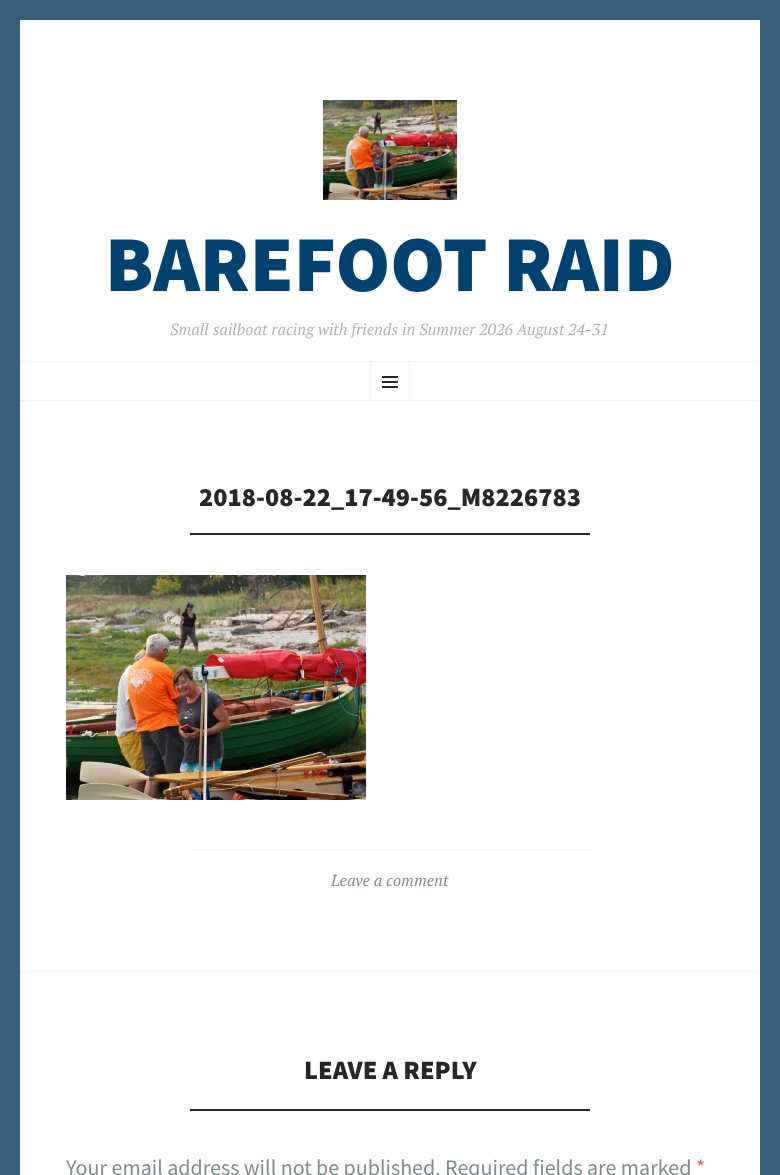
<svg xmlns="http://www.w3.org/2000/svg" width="780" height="1175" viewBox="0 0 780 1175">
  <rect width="100%" height="100%" fill="rgb(56,95,122)"/>
  <rect x="20" y="20" width="740" height="1155" fill="rgb(255,255,255)"/>
  <image x="323" y="100" width="134" height="100" href="pic1.png"/>
  <text x="105" y="291" font-family="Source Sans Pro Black" font-size="79.25" font-weight="900" fill="rgb(2,66,112)">BAREFOOT RAID</text>
  <text x="170" y="335" font-family="PT Serif" font-size="16.05" font-style="italic" fill="rgb(177,178,179)">Small sailboat racing with friends in Summer 2026 August 24-31</text>
  <rect x="20" y="361" width="740" height="1" fill="rgb(241,242,243)"/>
  <rect x="20" y="400" width="740" height="1" fill="rgb(241,242,243)"/>
  <rect x="370.5" y="361.5" width="39" height="39" fill="none" stroke="rgb(241,242,243)"/>
  <image x="382" y="376" width="16" height="12" href="pic2.png"/>
  <text x="199" y="506" font-family="Source Sans Pro Black" font-size="26.4" font-weight="900" fill="rgb(36,40,45)">2018-08-22_17-49-56_M8226783</text>
  <rect x="190" y="533" width="400" height="2" fill="rgb(36,40,45)"/>
  <image x="66" y="575" width="300" height="225" href="pic3.png"/>
  <rect x="190" y="849" width="400" height="1" fill="rgb(241,242,243)"/>
  <text x="331" y="886" font-family="PT Serif" font-size="16.05" font-style="italic" fill="rgb(127,141,140)">Leave a comment</text>
  <rect x="20" y="971" width="740" height="1" fill="rgb(241,242,243)"/>
  <text x="304" y="1079" font-family="Source Sans Pro Black" font-size="26.4" font-weight="900" fill="rgb(36,40,45)">LEAVE A REPLY</text>
  <rect x="190" y="1109" width="400" height="2" fill="rgb(36,40,45)"/>
  <text x="66" y="1175" font-family="Source Sans Pro" font-size="22" fill="rgb(127,141,140)">Your email address will not be published. Required fields are marked</text>
  <text x="696" y="1175" font-family="Source Sans Pro" font-size="22" fill="rgb(224,109,94)">*</text>
</svg>
